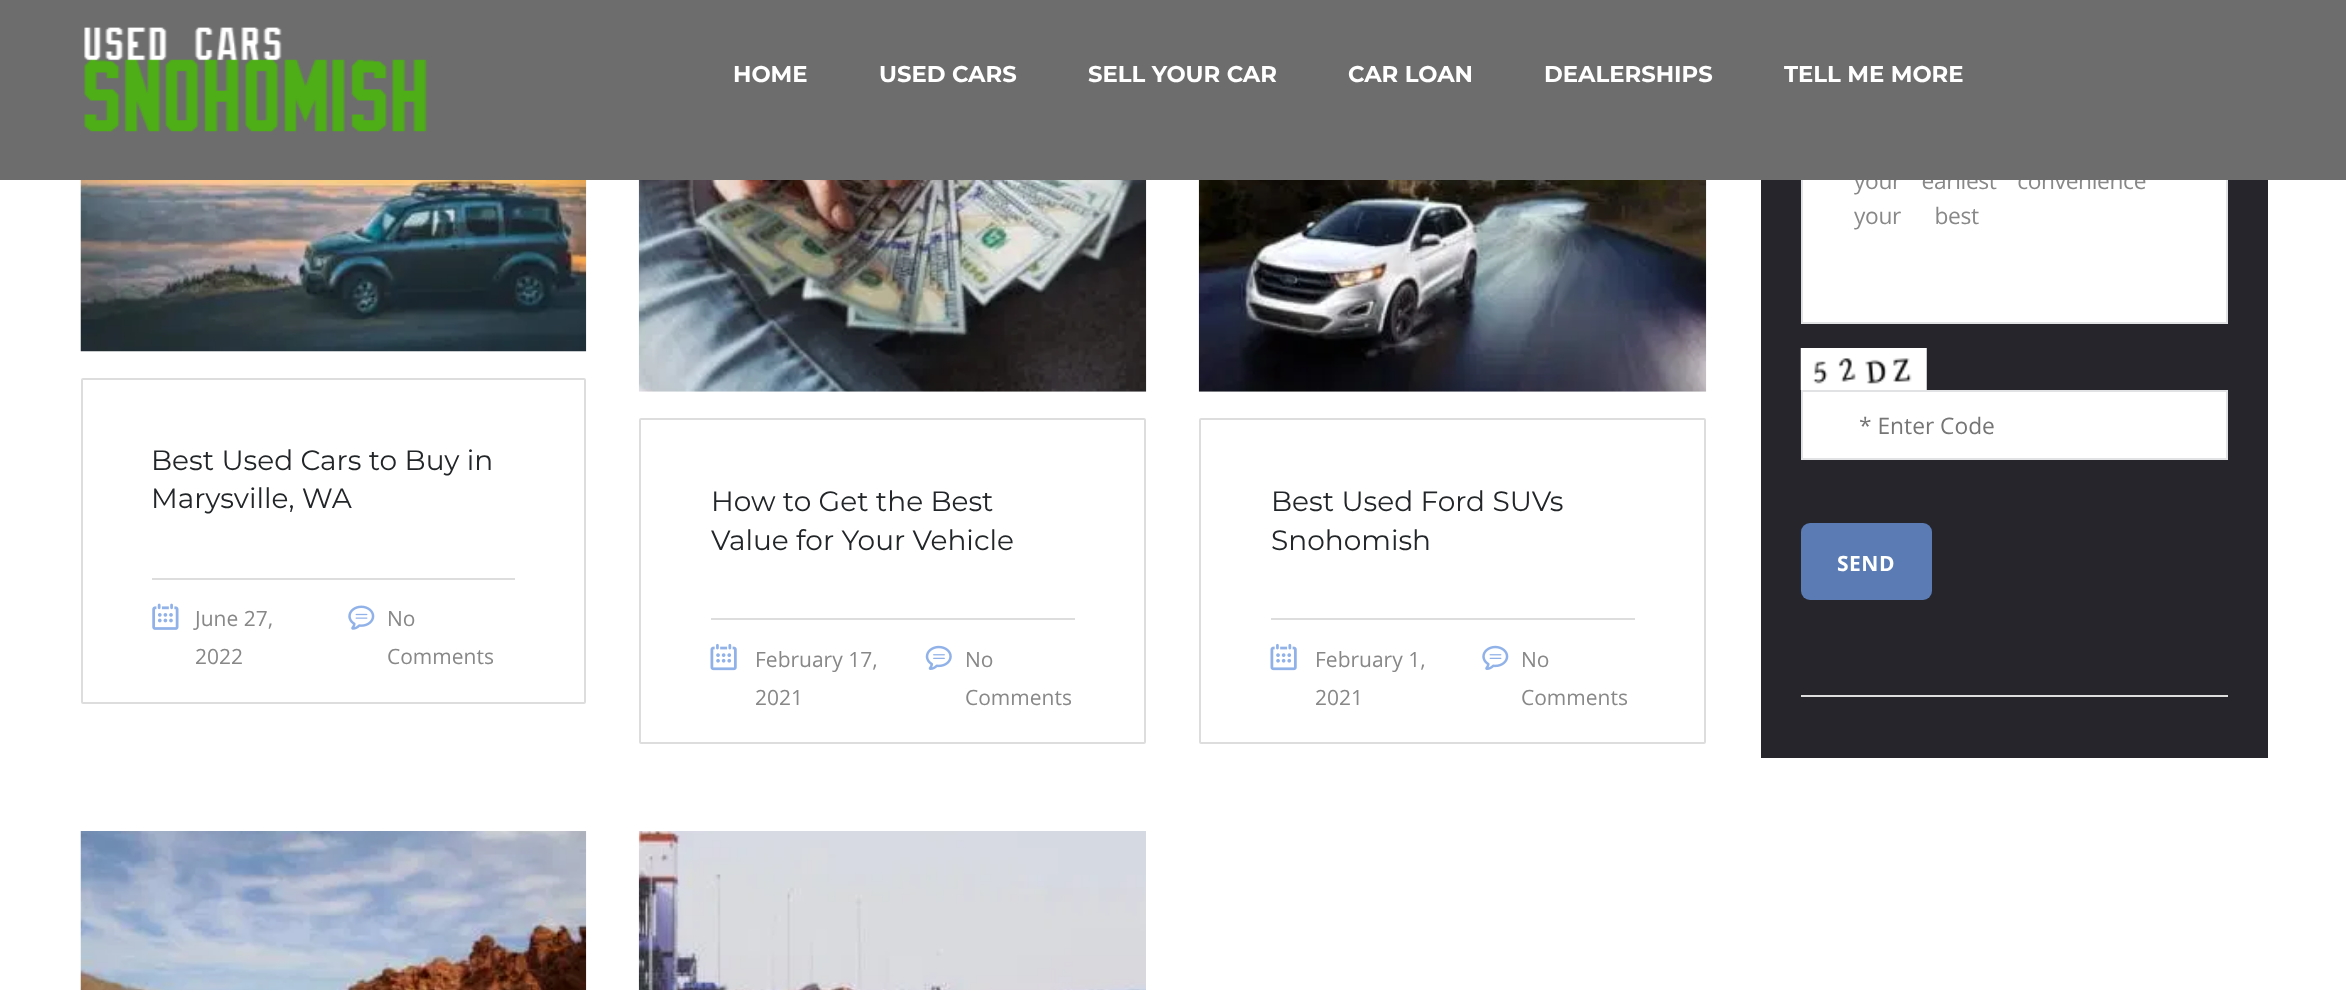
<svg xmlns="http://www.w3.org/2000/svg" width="2346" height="990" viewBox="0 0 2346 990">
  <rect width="100%" height="100%" fill="rgb(255,255,255)"/>
  <rect x="1761" y="180" width="507" height="578" fill="rgb(37,37,43)"/>
  <rect x="1803" y="180" width="423" height="142" fill="rgb(255,255,255)"/>
  <rect x="1802" y="78" width="425" height="245" fill="none" stroke="rgb(225,226,228)" stroke-width="2"/>
  <text x="1854" y="189" word-spacing="15" font-family="Open Sans" font-size="22.75" letter-spacing="-0.35" fill="rgb(136,136,136)">your earliest convenience</text>
  <rect x="0" y="0" width="2346" height="180" fill="rgb(109,109,109)"/>
  <image x="84" y="27" width="344" height="105" href="pic1.png"/>
  <g font-family="'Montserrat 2'" font-size="22.75" font-weight="100" fill="rgb(255,255,255)">
    <text x="733" y="82">HOME</text>
    <text x="879" y="82">USED CARS</text>
    <text x="1088" y="82">SELL YOUR CAR</text>
    <text x="1348" y="82">CAR LOAN</text>
    <text x="1544" y="82">DEALERSHIPS</text>
    <text x="1784" y="82">TELL ME MORE</text>
  </g>
  <image x="80" y="180" width="507" height="172" href="pic2.png"/>
  <rect x="82" y="379" width="503" height="324" rx="1" fill="none" stroke="rgb(221,221,221)" stroke-width="2"/>
  <g font-family="Montserrat" font-size="28" font-weight="100" fill="rgb(35,38,40)">
    <text>
      <tspan x="151" y="470">Best Used Cars to Buy in</tspan>
      <tspan x="151" y="508">Marysville, WA</tspan>
    </text>
  </g>
  <rect x="152" y="578" width="363" height="2" fill="rgb(221,221,221)"/>
  <image x="152" y="603" width="27" height="27" href="pic3.png"/>
  <g font-family="Open Sans" font-size="21" fill="rgb(136,136,136)">
    <text>
      <tspan x="195" y="626">June 27,</tspan>
      <tspan x="195" y="664">2022</tspan>
    </text>
  </g>
  <image x="348" y="605" width="27" height="25" href="pic4.png"/>
  <g font-family="Open Sans" font-size="21" fill="rgb(136,136,136)">
    <text>
      <tspan x="387" y="626">No</tspan>
      <tspan x="387" y="664">Comments</tspan>
    </text>
  </g>
  <image x="638" y="180" width="509" height="212" href="pic5.png"/>
  <rect x="640" y="419" width="505" height="324" rx="1" fill="none" stroke="rgb(221,221,221)" stroke-width="2"/>
  <g font-family="Montserrat" font-size="28" font-weight="100" fill="rgb(35,38,40)">
    <text>
      <tspan x="711" y="511">How to Get the Best</tspan>
      <tspan x="711" y="550">Value for Your Vehicle</tspan>
    </text>
  </g>
  <rect x="711" y="618" width="364" height="2" fill="rgb(221,221,221)"/>
  <image x="710" y="643" width="27" height="28" href="pic6.png"/>
  <g font-family="Open Sans" font-size="21" fill="rgb(136,136,136)">
    <text>
      <tspan x="755" y="667">February 17,</tspan>
      <tspan x="755" y="705">2021</tspan>
    </text>
  </g>
  <image x="925" y="645" width="27" height="25" href="pic7.png"/>
  <g font-family="Open Sans" font-size="21" fill="rgb(136,136,136)">
    <text>
      <tspan x="965" y="667">No</tspan>
      <tspan x="965" y="705">Comments</tspan>
    </text>
  </g>
  <image x="1198" y="180" width="509" height="212" href="pic8.png"/>
  <rect x="1200" y="419" width="505" height="324" rx="1" fill="none" stroke="rgb(221,221,221)" stroke-width="2"/>
  <g font-family="Montserrat" font-size="28" font-weight="100" fill="rgb(35,38,40)">
    <text>
      <tspan x="1271" y="511">Best Used Ford SUVs</tspan>
      <tspan x="1271" y="550">Snohomish</tspan>
    </text>
  </g>
  <rect x="1271" y="618" width="364" height="2" fill="rgb(221,221,221)"/>
  <image x="1270" y="643" width="27" height="28" href="pic6.png"/>
  <g font-family="Open Sans" font-size="21" fill="rgb(136,136,136)">
    <text>
      <tspan x="1315" y="667">February 1,</tspan>
      <tspan x="1315" y="705">2021</tspan>
    </text>
  </g>
  <image x="1482" y="645" width="27" height="25" href="pic9.png"/>
  <g font-family="Open Sans" font-size="21" fill="rgb(136,136,136)">
    <text>
      <tspan x="1521" y="667">No</tspan>
      <tspan x="1521" y="705">Comments</tspan>
    </text>
  </g>
  <image x="80" y="831" width="507" height="159" href="pic10.png"/>
  <image x="638" y="831" width="508" height="159" href="pic11.png"/>
  <rect x="1801" y="695" width="427" height="2" fill="rgb(221,221,221)"/>
  <text x="1854" y="224" word-spacing="28" font-family="Open Sans" font-size="22.75" letter-spacing="-0.35" fill="rgb(136,136,136)">your best</text>
  <image x="1800" y="348" width="127" height="42" href="pic12.png"/>
  <rect x="1802" y="391" width="425" height="68" fill="rgb(255,255,255)" stroke="rgb(225,226,228)" stroke-width="2"/>
  <text x="1859" y="434" font-family="Open Sans" font-size="22.75" fill="rgb(117,117,117)">* Enter Code</text>
  <rect x="1801" y="523" width="131" height="77" rx="9" fill="rgb(90,123,180)"/>
  <text x="1837" y="571" font-family="Open Sans" font-size="21" font-weight="bold" letter-spacing="0.5" fill="rgb(255,255,255)">SEND</text>
</svg>
